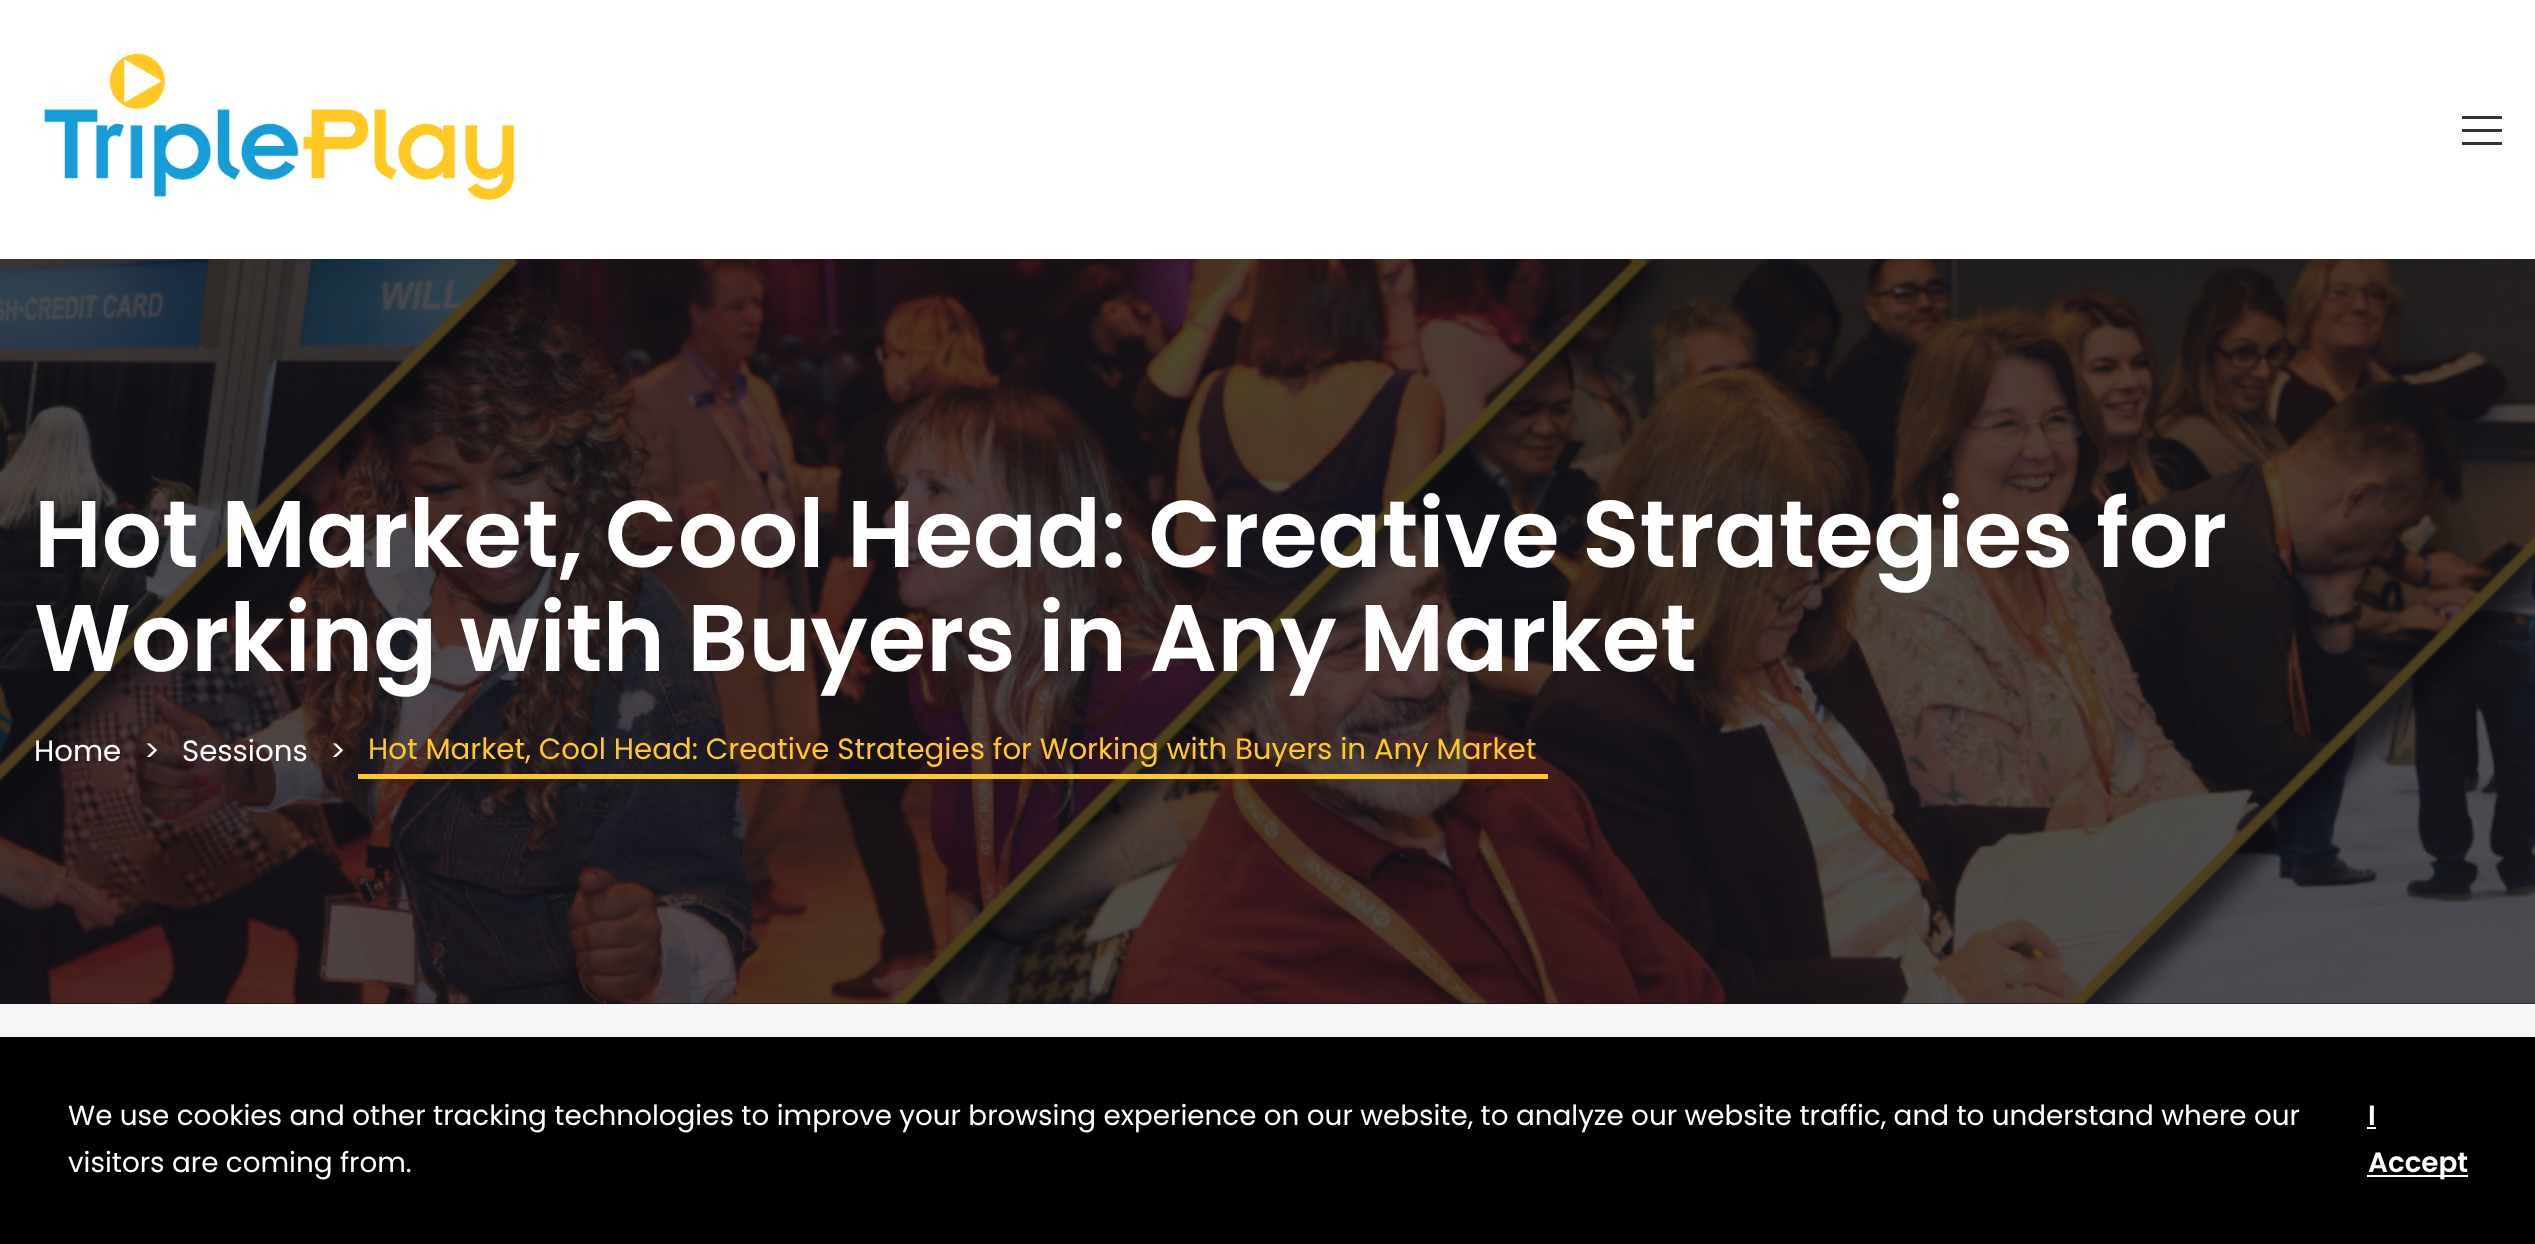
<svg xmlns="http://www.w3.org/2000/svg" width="2535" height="1244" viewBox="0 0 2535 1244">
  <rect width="100%" height="100%" fill="rgb(246,246,246)"/>
  <rect x="0" y="259" width="2535" height="745" fill="rgb(18,18,25)"/>
  <image x="0" y="259" width="2535" height="745" href="pic2.png"/>
  <rect x="0" y="2" width="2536" height="259" fill="rgba(0,0,0,0.1)" filter="blur(34px)"/>
  <rect x="0" y="0" width="2535" height="259" fill="rgb(255,255,255)"/>
  <image x="44" y="53" width="470" height="147" href="pic1.png"/>
  <rect x="2462" y="116" width="40" height="3" fill="rgb(51,51,51)"/>
  <rect x="2462" y="129" width="40" height="3" fill="rgb(51,51,51)"/>
  <rect x="2462" y="142" width="40" height="3" fill="rgb(51,51,51)"/>
  <g font-family="Poppins" font-size="94.5" font-weight="600" fill="rgb(255,255,255)">
    <text>
      <tspan x="34" y="567">Hot Market, Cool Head: Creative Strategies for</tspan>
      <tspan x="34" y="671">Working with Buyers in Any Market</tspan>
    </text>
  </g>
  <g font-family="Poppins" font-size="29.25" fill="rgb(255,255,255)">
    <text x="34" y="761">Home</text>
    <text x="144" y="761">&gt;</text>
    <text x="182" y="761">Sessions</text>
    <text x="330" y="761">&gt;</text>
  </g>
  <rect x="358" y="774" width="1190" height="5" fill="rgb(255,200,36)"/>
  <text x="368" y="759" font-family="Poppins" font-size="29.25" fill="rgb(255,200,36)">Hot Market, Cool Head: Creative Strategies for Working with Buyers in Any Market</text>
  <rect x="0" y="1037" width="2535" height="207" fill="rgb(0,0,0)"/>
  <g font-family="Poppins" font-size="27.8" fill="rgb(255,255,255)">
    <text>
      <tspan x="68" y="1125">We use cookies and other tracking technologies to improve your browsing experience on our website, to analyze our website traffic, and to understand where our</tspan>
      <tspan x="68" y="1172">visitors are coming from.</tspan>
    </text>
  </g>
  <text x="2368" y="1125" font-family="Poppins" font-size="27.8" font-weight="600" fill="rgb(255,255,255)">I</text>
  <rect x="2367" y="1127" width="9" height="2" fill="rgb(255,255,255)"/>
  <rect x="2367" y="1175" width="101" height="2" fill="rgb(255,255,255)"/>
  <text x="2368" y="1172" font-family="Poppins" font-size="27.8" font-weight="600" fill="rgb(255,255,255)">Accept</text>
</svg>
